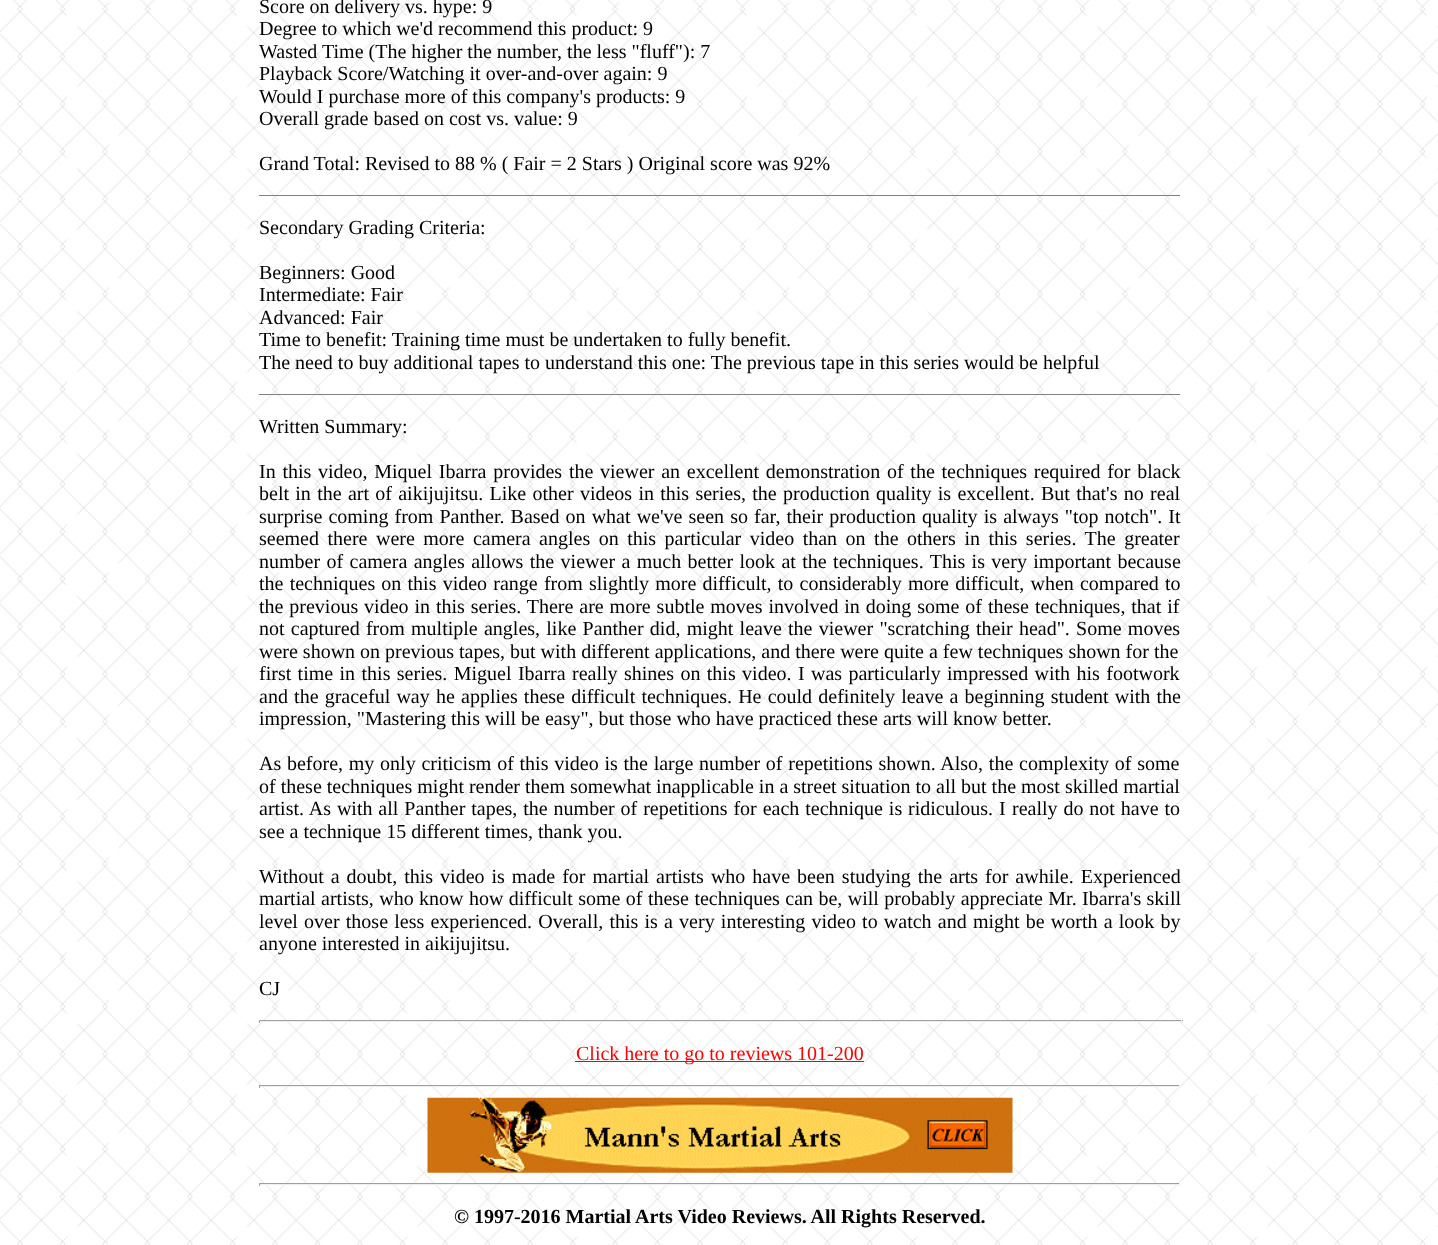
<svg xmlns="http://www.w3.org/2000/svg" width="1438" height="1245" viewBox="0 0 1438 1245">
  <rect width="100%" height="100%" fill="rgb(255,255,255)"/>
  <image x="0" y="0" width="1438" height="1245" href="pic1.png"/>
  <g font-family="Liberation Serif" font-size="20" fill="rgb(0,0,0)">
    <text>
      <tspan x="259" y="13">Score on delivery vs. hype: 9</tspan>
      <tspan x="259" y="35">Degree to which we'd recommend this product: 9</tspan>
      <tspan x="259" y="58">Wasted Time (The higher the number, the less "fluff"): 7</tspan>
      <tspan x="259" y="80">Playback Score/Watching it over-and-over again: 9</tspan>
      <tspan x="259" y="103">Would I purchase more of this company's products: 9</tspan>
      <tspan x="259" y="125">Overall grade based on cost vs. value: 9</tspan>
    </text>
    <text x="259" y="170">Grand Total: Revised to 88 % ( Fair = 2 Stars ) Original score was 92%</text>
  </g>
  <rect x="259" y="195" width="921" height="1" fill="rgb(128,128,128)"/>
  <g font-family="Liberation Serif" font-size="20" fill="rgb(0,0,0)">
    <text x="259" y="234">Secondary Grading Criteria:</text>
    <text>
      <tspan x="259" y="279">Beginners: Good</tspan>
      <tspan x="259" y="301">Intermediate: Fair</tspan>
      <tspan x="259" y="324">Advanced: Fair</tspan>
      <tspan x="259" y="346">Time to benefit: Training time must be undertaken to fully benefit.</tspan>
      <tspan x="259" y="369">The need to buy additional tapes to understand this one: The previous tape in this series would be helpful</tspan>
    </text>
  </g>
  <rect x="259" y="394" width="921" height="1" fill="rgb(128,128,128)"/>
  <g font-family="Liberation Serif" font-size="20" fill="rgb(0,0,0)">
    <text x="259" y="433">Written Summary:</text>
    <text>
      <tspan x="259" y="478" word-spacing="1.75">In this video, Miquel Ibarra provides the viewer an excellent demonstration of the techniques required for black</tspan>
      <tspan x="259" y="500" word-spacing="1.3">belt in the art of aikijujitsu. Like other videos in this series, the production quality is excellent. But that's no real</tspan>
      <tspan x="259" y="523" word-spacing="1.1">surprise coming from Panther. Based on what we've seen so far, their production quality is always "top notch". It</tspan>
      <tspan x="259" y="545" word-spacing="3.5">seemed there were more camera angles on this particular video than on the others in this series. The greater</tspan>
      <tspan x="259" y="568" word-spacing="1.4">number of camera angles allows the viewer a much better look at the techniques. This is very important because</tspan>
      <tspan x="259" y="590" word-spacing="1.2">the techniques on this video range from slightly more difficult, to considerably more difficult, when compared to</tspan>
      <tspan x="259" y="613" word-spacing="0.9">the previous video in this series. There are more subtle moves involved in doing some of these techniques, that if</tspan>
      <tspan x="259" y="635" word-spacing="1.25">not captured from multiple angles, like Panther did, might leave the viewer "scratching their head". Some moves</tspan>
      <tspan x="259" y="658">were shown on previous tapes, but with different applications, and there were quite a few techniques shown for the</tspan>
      <tspan x="259" y="680" word-spacing="1.4">first time in this series. Miguel Ibarra really shines on this video. I was particularly impressed with his footwork</tspan>
      <tspan x="259" y="703" word-spacing="1.2">and the graceful way he applies these difficult techniques. He could definitely leave a beginning student with the</tspan>
      <tspan x="259" y="725">impression, "Mastering this will be easy", but those who have practiced these arts will know better.</tspan>
    </text>
    <text>
      <tspan x="259" y="770" word-spacing="0.75">As before, my only criticism of this video is the large number of repetitions shown. Also, the complexity of some</tspan>
      <tspan x="259" y="793">of these techniques might render them somewhat inapplicable in a street situation to all but the most skilled martial</tspan>
      <tspan x="259" y="815" word-spacing="0.9">artist. As with all Panther tapes, the number of repetitions for each technique is ridiculous.</tspan>
    </text>
    <text x="999" y="815">I</text>
    <text x="1012" y="815" word-spacing="0.9">really do not have to</text>
    <text x="259" y="838">see a technique 15 different times, thank you.</text>
    <text>
      <tspan x="259" y="883" word-spacing="2">Without a doubt, this video is made for martial artists who have been studying the arts for awhile. Experienced</tspan>
      <tspan x="259" y="905" word-spacing="0.4">martial artists, who know how difficult some of these techniques can be, will probably appreciate Mr. Ibarra's skill</tspan>
      <tspan x="259" y="928" word-spacing="1.2">level over those less experienced. Overall, this is a very interesting video to watch and might be worth a look by</tspan>
      <tspan x="259" y="950">anyone interested in aikijujitsu.</tspan>
    </text>
    <text x="259" y="995">CJ</text>
  </g>
  <rect x="259" y="1020" width="924" height="1" fill="rgb(159,159,159)"/>
  <rect x="1181" y="1020" width="1" height="3" fill="rgb(238,238,238)"/>
  <rect x="259" y="1021" width="924" height="1" fill="rgb(238,238,238)"/>
  <rect x="259" y="1020" width="1" height="3" fill="rgb(159,159,159)"/>
  <rect x="575" y="1061" width="289" height="1" fill="rgb(255,0,0)"/>
  <text x="576" y="1060" font-family="Liberation Serif" font-size="20" fill="rgb(255,0,0)">Click here to go to reviews 101-200</text>
  <rect x="259" y="1085" width="921" height="1" fill="rgb(159,159,159)"/>
  <rect x="1179" y="1085" width="1" height="3" fill="rgb(238,238,238)"/>
  <rect x="259" y="1086" width="921" height="1" fill="rgb(238,238,238)"/>
  <rect x="259" y="1085" width="1" height="3" fill="rgb(159,159,159)"/>
  <image x="427" y="1097" width="586" height="76" href="pic2.png"/>
  <rect x="259" y="1183" width="921" height="1" fill="rgb(159,159,159)"/>
  <rect x="1179" y="1183" width="1" height="3" fill="rgb(238,238,238)"/>
  <rect x="259" y="1184" width="921" height="1" fill="rgb(238,238,238)"/>
  <rect x="259" y="1183" width="1" height="3" fill="rgb(159,159,159)"/>
  <text x="454" y="1223" font-family="Liberation Serif" font-size="20" font-weight="bold" fill="rgb(0,0,0)">© 1997-2016 Martial Arts Video Reviews. All Rights Reserved.</text>
</svg>
